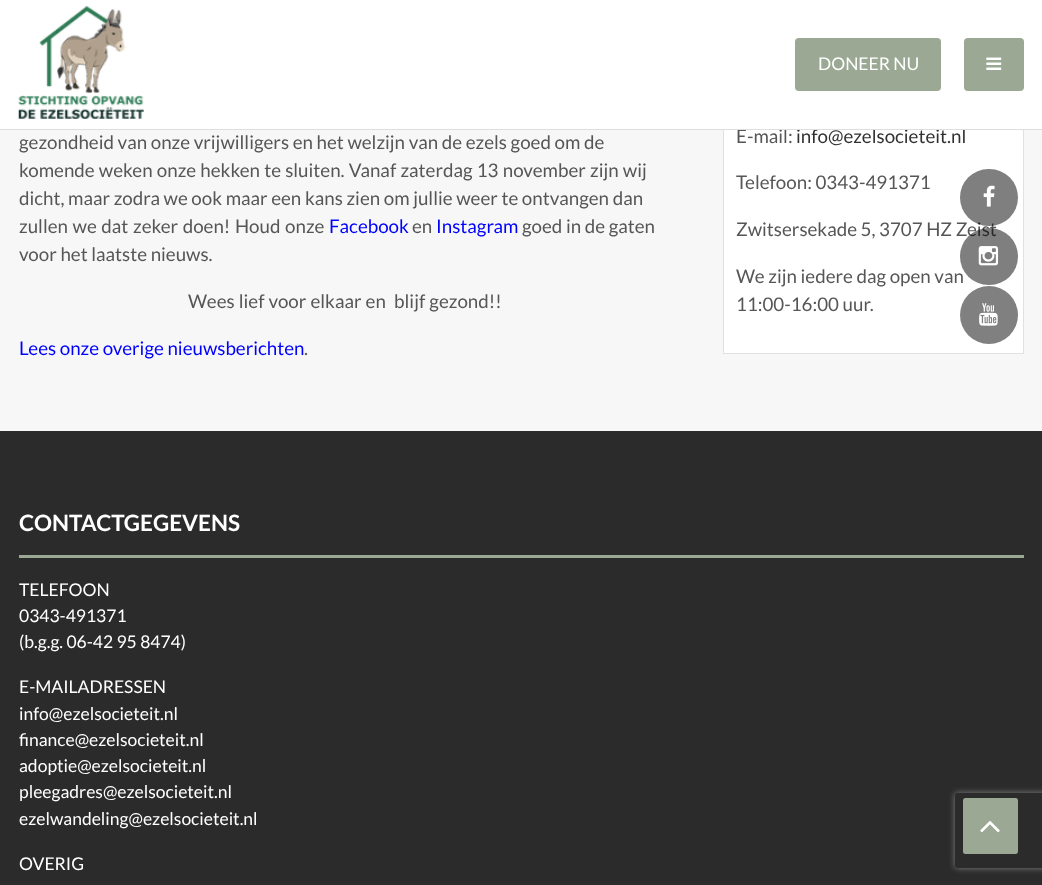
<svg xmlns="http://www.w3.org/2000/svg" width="1042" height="885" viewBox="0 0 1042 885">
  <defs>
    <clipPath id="clip1"><path d="M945 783H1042V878H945ZM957.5 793H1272.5C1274 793 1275 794 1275 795.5V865.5C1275 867 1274 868 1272.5 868H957.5C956 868 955 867 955 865.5V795.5C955 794 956 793 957.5 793Z" clip-rule="evenodd"/></clipPath>
  </defs>
  <rect width="100%" height="100%" fill="rgb(247,247,247)"/>
  <rect x="724" y="130" width="299" height="223" fill="rgb(255,255,255)"/>
  <rect x="723.5" y="28.5" width="300" height="325" fill="none" stroke="rgb(225,225,225)"/>
  <rect x="0" y="0" width="1042" height="129" fill="rgb(255,255,255)"/>
  <text x="736" y="143" font-family="Lato" font-size="18.75" fill="rgb(86,86,86)">E-mail:</text>
  <text x="796" y="143" font-family="Lato" font-size="18.75" fill="rgb(49,49,49)">info@ezelsocieteit.nl</text>
  <rect x="0" y="129" width="1042" height="1" fill="rgb(222,222,222)"/>
  <image x="18" y="6" width="126" height="113" href="pic1.png"/>
  <rect x="795" y="38" width="146" height="53" rx="4" fill="rgb(154,168,148)"/>
  <text x="818" y="70" font-family="Lato" font-size="17.5" fill="rgb(255,255,255)">DONEER NU</text>
  <rect x="964" y="38" width="60" height="53" rx="4" fill="rgb(154,168,148)"/>
  <image x="986" y="57" width="16" height="13" href="pic2.png"/>
  <g font-family="Lato" font-size="18.75" fill="rgb(86,86,86)">
    <text>
      <tspan x="19" y="149">gezondheid van onze vrijwilligers en het welzijn van de ezels goed om de</tspan>
      <tspan x="19" y="177" word-spacing="0.6">komende weken onze hekken te sluiten. Vanaf zaterdag 13 november zijn wij</tspan>
      <tspan x="19" y="205">dicht, maar zodra we ook maar een kans zien om jullie weer te ontvangen dan</tspan>
      <tspan x="19" y="233" word-spacing="1">zullen we dat zeker doen! Houd onze</tspan>
    </text>
  </g>
  <text x="329" y="233" font-family="Lato" font-size="18.75" fill="rgb(0,0,255)">Facebook</text>
  <text x="412" y="233" font-family="Lato" font-size="18.75" fill="rgb(86,86,86)">en</text>
  <text x="436" y="233" font-family="Lato" font-size="18.75" fill="rgb(0,0,255)">Instagram</text>
  <g font-family="Lato" font-size="18.75" fill="rgb(86,86,86)">
    <text x="522" y="233">goed in de gaten</text>
    <text x="19" y="261">voor het laatste nieuws.</text>
    <text x="188" y="308" word-spacing="0.5" xml:space="preserve">Wees lief voor elkaar en  blijf gezond!!</text>
  </g>
  <text x="19" y="355" font-family="Lato" font-size="18.75" fill="rgb(0,0,255)">Lees onze overige nieuwsberichten</text>
  <g font-family="Lato" font-size="18.75" fill="rgb(86,86,86)">
    <text x="304" y="355">.</text>
    <text x="736" y="189">Telefoon: 0343-491371</text>
    <text x="736" y="236">Zwitsersekade 5, 3707 HZ Zeist</text>
    <text>
      <tspan x="736" y="283">We zijn iedere dag open van</tspan>
      <tspan x="736" y="311">11:00-16:00 uur.</tspan>
    </text>
  </g>
  <rect x="960" y="169" width="58" height="57" rx="28.5" fill="rgba(0,0,0,0.5)"/>
  <image x="983" y="185" width="12" height="22" href="pic3.png"/>
  <rect x="960" y="228" width="58" height="57" rx="28.5" fill="rgba(0,0,0,0.5)"/>
  <image x="978" y="246" width="21" height="20" href="pic4.png"/>
  <circle cx="989" cy="315" r="29" fill="rgb(128,128,128)"/>
  <image x="979" y="303" width="19" height="23" href="pic5.png"/>
  <rect x="0" y="431" width="1042" height="454" fill="rgb(43,43,43)"/>
  <rect x="19" y="555" width="1005" height="3" fill="rgb(154,168,148)"/>
  <text x="19" y="531" font-family="Lato" font-size="22.5" font-weight="bold" fill="rgb(255,255,255)">CONTACTGEGEVENS</text>
  <g font-family="Lato" font-size="17.5" fill="rgb(255,255,255)">
    <text>
      <tspan x="19" y="596">TELEFOON</tspan>
      <tspan x="19" y="622">0343-491371</tspan>
      <tspan x="19" y="648">(b.g.g. 06-42 95 8474)</tspan>
    </text>
    <text>
      <tspan x="19" y="693">E-MAILADRESSEN</tspan>
      <tspan x="19" y="720">info@ezelsocieteit.nl</tspan>
      <tspan x="19" y="746">finance@ezelsocieteit.nl</tspan>
      <tspan x="19" y="772">adoptie@ezelsocieteit.nl</tspan>
      <tspan x="19" y="798">pleegadres@ezelsocieteit.nl</tspan>
      <tspan x="19" y="825">ezelwandeling@ezelsocieteit.nl</tspan>
    </text>
    <text x="19" y="870">OVERIG</text>
  </g>
  <g clip-path="url(#clip1)">
    <rect x="955" y="793" width="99" height="75" rx="2.5" fill="rgb(128,128,128)" filter="blur(3px)"/>
  </g>
  <rect x="963" y="798" width="55" height="56" rx="2.5" fill="rgb(154,168,148)"/>
  <image x="980" y="821" width="20" height="12" href="pic6.png"/>
</svg>
